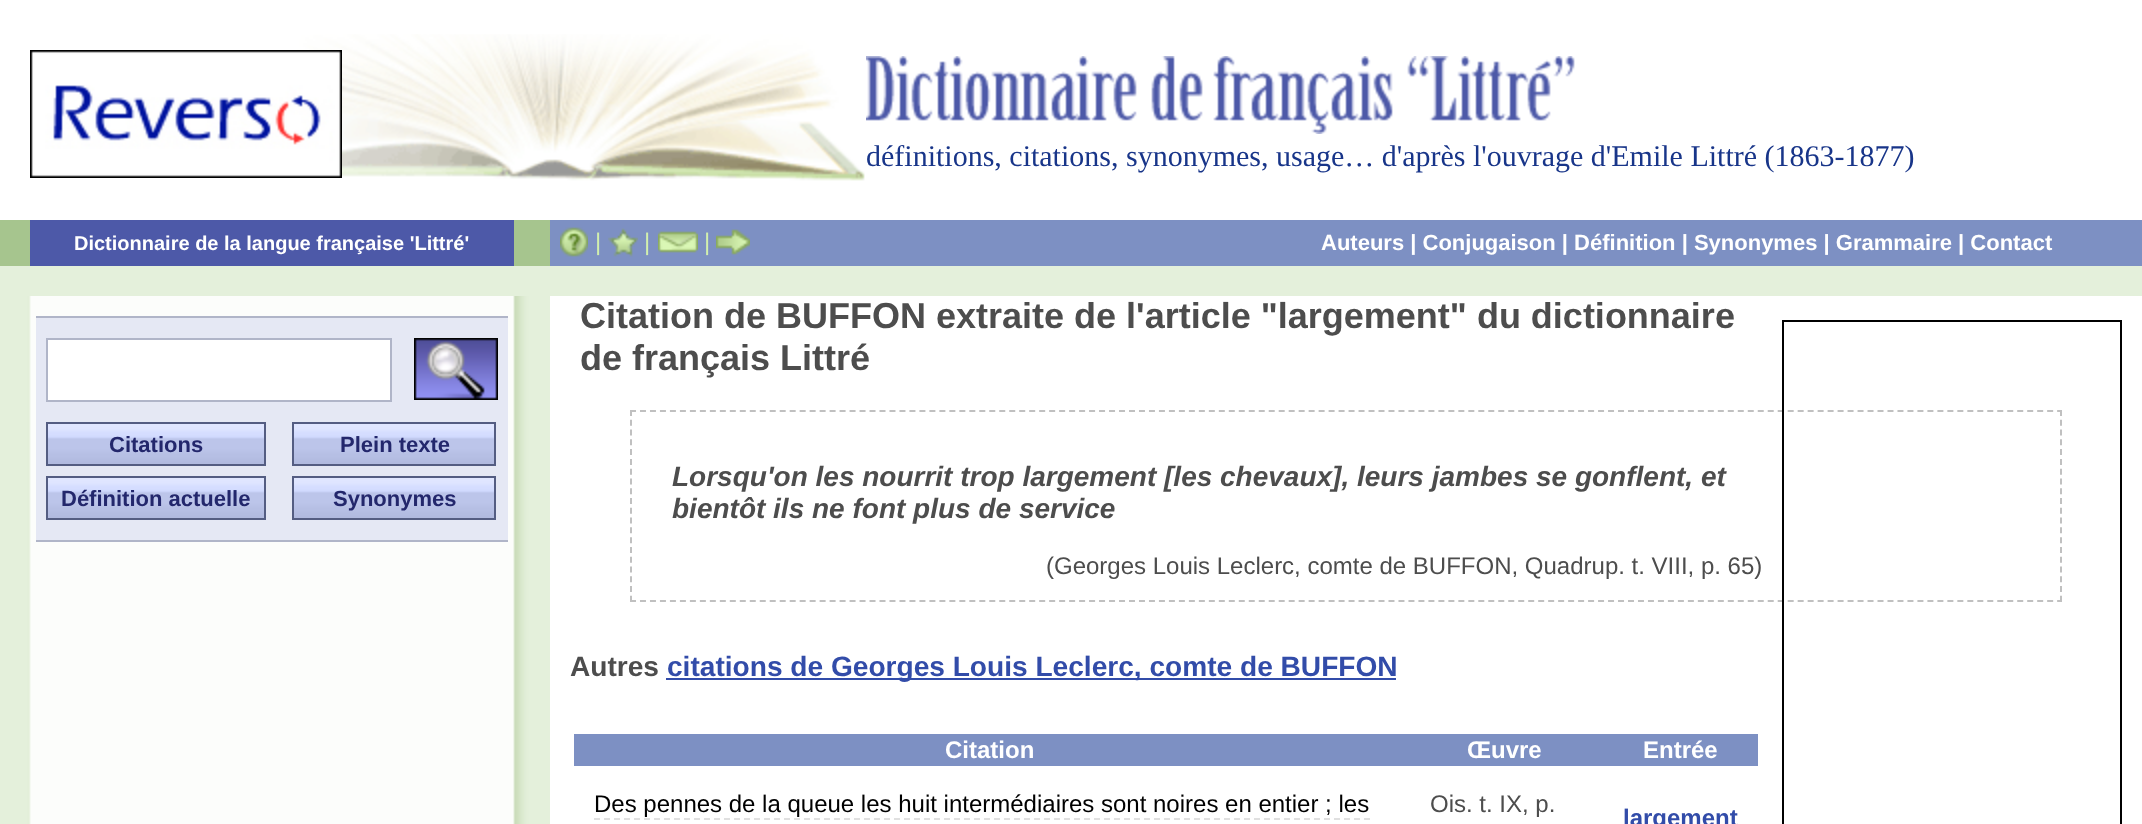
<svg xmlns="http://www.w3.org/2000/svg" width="2142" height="824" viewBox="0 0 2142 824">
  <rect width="100%" height="100%" fill="rgb(228,240,219)"/>
  <rect x="0" y="0" width="2142" height="220" fill="rgb(255,255,255)"/>
  <image x="234" y="34" width="631" height="147" href="pic1.png"/>
  <image x="30" y="50" width="312" height="128" href="pic2.png"/>
  <image x="866" y="56" width="709" height="78" href="pic3.png"/>
  <text x="866" y="166" font-family="Liberation Serif" font-size="30" fill="rgb(24,53,137)">définitions, citations, synonymes, usage… d'après l'ouvrage d'Emile Littré (1863-1877)</text>
  <rect x="0" y="220" width="550" height="46" fill="rgb(166,197,142)"/>
  <rect x="30" y="220" width="484" height="46" fill="rgb(77,89,168)"/>
  <text x="74" y="250" font-family="Liberation Sans" font-size="20" font-weight="bold" fill="rgb(255,255,255)">Dictionnaire de la langue française 'Littré'</text>
  <rect x="550" y="220" width="1592" height="46" fill="rgb(125,144,195)"/>
  <image x="560" y="227" width="28" height="30" href="pic4.png"/>
  <text x="595" y="250" font-family="Liberation Sans" font-size="24" fill="rgb(210,239,173)">|</text>
  <image x="608" y="228" width="30" height="29" href="pic5.png"/>
  <text x="644" y="250" font-family="Liberation Sans" font-size="24" fill="rgb(210,239,173)">|</text>
  <image x="658" y="231" width="40" height="22" href="pic6.png"/>
  <text x="704" y="250" font-family="Liberation Sans" font-size="24" fill="rgb(210,239,173)">|</text>
  <image x="716" y="229" width="34" height="26" href="pic7.png"/>
  <text x="1321" y="250" font-family="Liberation Sans" font-size="22" font-weight="bold" fill="rgb(255,255,255)">Auteurs | Conjugaison | Définition | Synonymes | Grammaire | Contact</text>
  <rect x="550" y="296" width="1592" height="528" fill="rgb(255,255,255)"/>
  <image x="0" y="296" width="550" height="528" href="pic8.png"/>
  <rect x="36" y="318" width="472" height="222" fill="rgb(229,232,244)"/>
  <rect x="36" y="316" width="472" height="2" fill="rgb(176,181,200)"/>
  <rect x="36" y="540" width="472" height="2" fill="rgb(176,181,200)"/>
  <rect x="47" y="339" width="344" height="62" fill="rgb(255,255,255)" stroke="rgb(176,181,200)" stroke-width="2"/>
  <image x="414" y="338" width="84" height="62" href="pic9.png"/>
  <image x="48" y="424" width="216" height="40" href="pic10.png"/>
  <rect x="47" y="423" width="218" height="42" fill="none" stroke="rgb(84,93,130)" stroke-width="2"/>
  <text x="109" y="452" font-family="Liberation Sans" font-size="22" font-weight="bold" fill="rgb(35,39,108)">Citations</text>
  <image x="294" y="424" width="200" height="40" href="pic11.png"/>
  <rect x="293" y="423" width="202" height="42" fill="none" stroke="rgb(84,93,130)" stroke-width="2"/>
  <text x="340" y="452" font-family="Liberation Sans" font-size="22" font-weight="bold" fill="rgb(35,39,108)">Plein texte</text>
  <image x="48" y="478" width="216" height="40" href="pic10.png"/>
  <rect x="47" y="477" width="218" height="42" fill="none" stroke="rgb(84,93,130)" stroke-width="2"/>
  <text x="61" y="506" font-family="Liberation Sans" font-size="22" font-weight="bold" fill="rgb(35,39,108)">Définition actuelle</text>
  <image x="294" y="478" width="200" height="40" href="pic11.png"/>
  <rect x="293" y="477" width="202" height="42" fill="none" stroke="rgb(84,93,130)" stroke-width="2"/>
  <text x="333" y="506" font-family="Liberation Sans" font-size="22" font-weight="bold" fill="rgb(35,39,108)">Synonymes</text>
  <g font-family="Liberation Sans" font-size="36" font-weight="bold" fill="rgb(77,77,77)">
    <text>
      <tspan x="580" y="328">Citation de BUFFON extraite de l'article "largement" du dictionnaire</tspan>
      <tspan x="580" y="370">de français Littré</tspan>
    </text>
  </g>
  <path d="M630 411H2062" fill="none" stroke="rgb(192,192,192)" stroke-width="2" stroke-dasharray="6 3.98"/>
  <path d="M2061 410V602" fill="none" stroke="rgb(192,192,192)" stroke-width="2" stroke-dasharray="6 3.78"/>
  <path d="M630 601H2062" fill="none" stroke="rgb(192,192,192)" stroke-width="2" stroke-dasharray="6 3.98"/>
  <path d="M631 410V602" fill="none" stroke="rgb(192,192,192)" stroke-width="2" stroke-dasharray="6 3.78"/>
  <g font-family="Liberation Sans" font-size="28" font-weight="bold" font-style="italic" fill="rgb(77,77,77)">
    <text>
      <tspan x="672" y="486">Lorsqu'on les nourrit trop largement [les chevaux], leurs jambes se gonflent, et</tspan>
      <tspan x="672" y="518">bientôt ils ne font plus de service</tspan>
    </text>
  </g>
  <text x="1046" y="574" font-family="Liberation Sans" font-size="24" fill="rgb(77,77,77)">(Georges Louis Leclerc, comte de BUFFON, Quadrup. t. VIII, p. 65)</text>
  <text x="570" y="676" font-family="Liberation Sans" font-size="28.1" font-weight="bold" fill="rgb(77,77,77)">Autres</text>
  <rect x="666" y="678" width="730" height="2" fill="rgb(50,76,169)"/>
  <text x="667" y="676" font-family="Liberation Sans" font-size="28.1" font-weight="bold" fill="rgb(50,76,169)">citations de Georges Louis Leclerc, comte de BUFFON</text>
  <rect x="574" y="734" width="1184" height="32" fill="rgb(125,144,195)"/>
  <g font-family="Liberation Sans" font-size="24" font-weight="bold" fill="rgb(255,255,255)">
    <text x="945" y="758">Citation</text>
    <text x="1467" y="758">Œuvre</text>
    <text x="1643" y="758">Entrée</text>
  </g>
  <text x="594" y="812" font-family="Liberation Sans" font-size="24" fill="rgb(0,0,0)">Des pennes de la queue les huit intermédiaires sont noires en entier ; les</text>
  <path d="M594 819H1370" fill="none" stroke="rgb(224,224,224)" stroke-width="2" stroke-dasharray="6 4"/>
  <text x="1430" y="812" font-family="Liberation Sans" font-size="24" fill="rgb(77,77,77)">Ois. t. IX, p.</text>
  <text x="1623" y="826" font-family="Liberation Sans" font-size="24" font-weight="bold" fill="rgb(50,76,169)">largement</text>
  <rect x="1783" y="321" width="338" height="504" fill="none" stroke="rgb(0,0,0)" stroke-width="2"/>
</svg>
